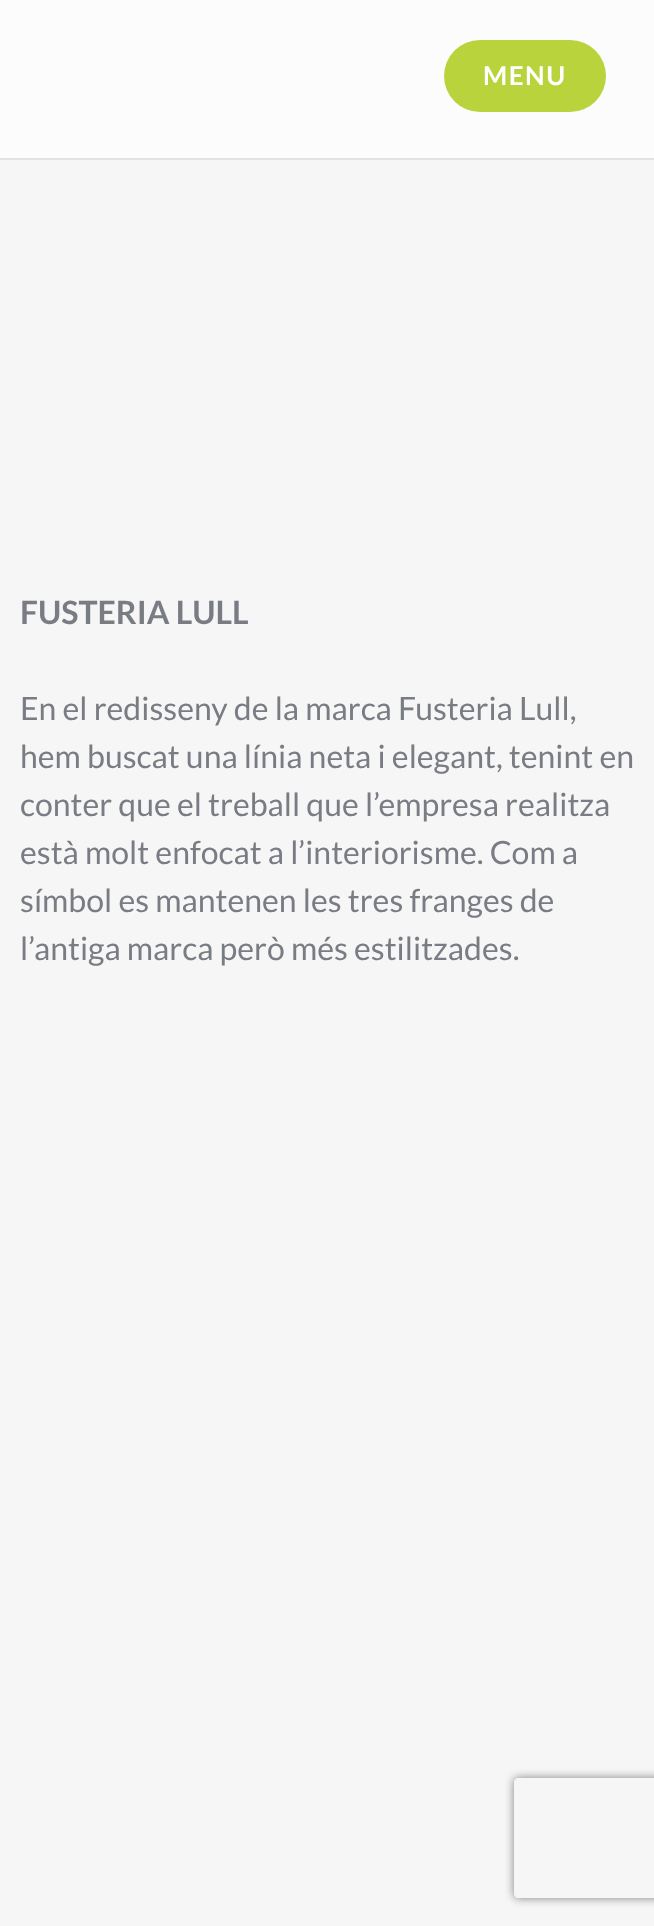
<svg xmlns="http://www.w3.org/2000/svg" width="654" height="1926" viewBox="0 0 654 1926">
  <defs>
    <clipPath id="clip1"><path d="M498 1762H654V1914H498ZM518 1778H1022C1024 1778 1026 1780 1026 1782V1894C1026 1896 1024 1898 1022 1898H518C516 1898 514 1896 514 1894V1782C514 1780 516 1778 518 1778Z" clip-rule="evenodd"/></clipPath>
  </defs>
  <rect width="100%" height="100%" fill="rgb(246,246,246)"/>
  <rect x="0" y="0" width="654" height="158" fill="rgb(252,252,252)"/>
  <rect x="0" y="158" width="654" height="2" fill="rgb(227,227,227)"/>
  <rect x="444" y="40" width="162" height="72" rx="36" fill="rgb(185,211,60)"/>
  <text x="483" y="85" font-family="Lato" font-size="26" font-weight="bold" letter-spacing="1.5" fill="rgb(255,255,255)">MENU</text>
  <text x="20" y="624" font-family="Lato" font-size="32" font-weight="bold" fill="rgb(122,124,132)">FUSTERIA LULL</text>
  <g font-family="Lato" font-size="32" fill="rgb(122,124,132)">
    <text>
      <tspan x="20" y="720">En el redisseny de la marca Fusteria Lull,</tspan>
      <tspan x="20" y="768">hem buscat una línia neta i elegant, tenint en</tspan>
      <tspan x="20" y="816">conter que el treball que l’empresa realitza</tspan>
      <tspan x="20" y="864">està molt enfocat a l’interiorisme. Com a</tspan>
      <tspan x="20" y="912">símbol es mantenen les tres franges de</tspan>
      <tspan x="20" y="960">l’antiga marca però més estilitzades.</tspan>
    </text>
  </g>
  <g clip-path="url(#clip1)">
    <rect x="514" y="1778" width="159" height="120" rx="4" fill="rgb(128,128,128)" filter="blur(5px)"/>
  </g>
</svg>
